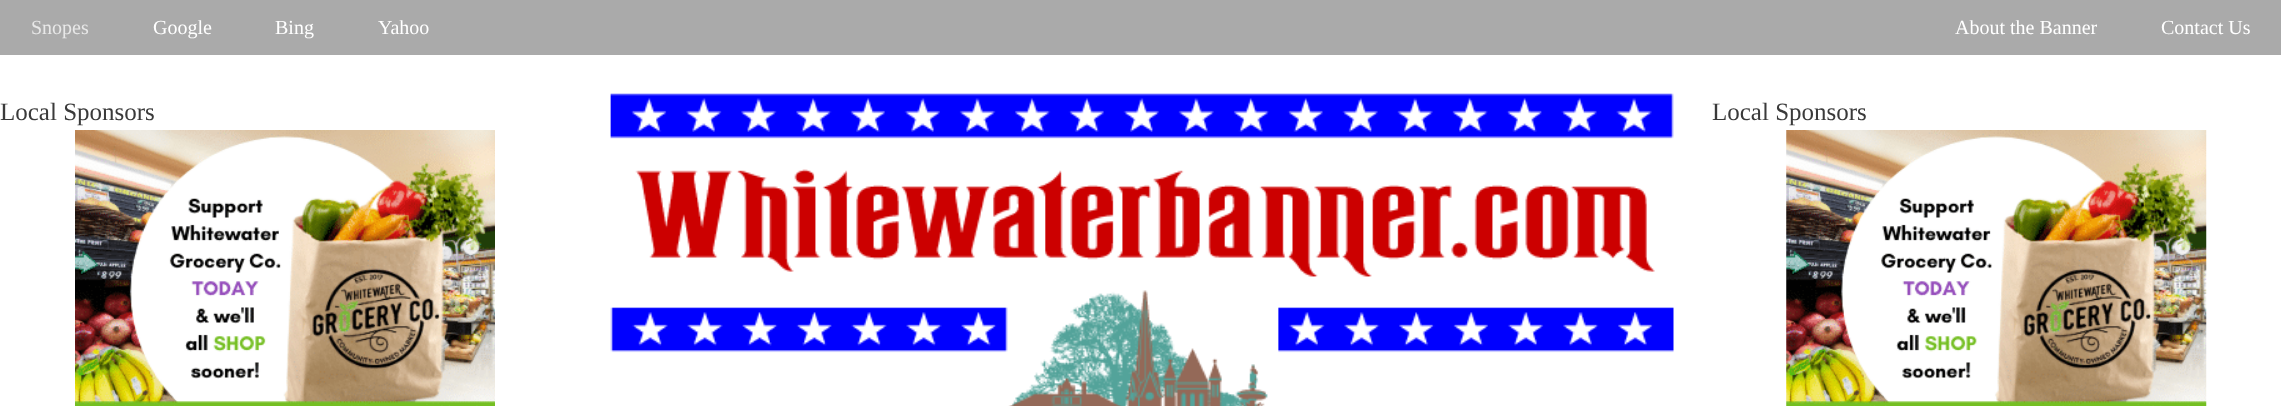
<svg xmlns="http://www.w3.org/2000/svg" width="2281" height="406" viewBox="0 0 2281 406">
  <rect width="100%" height="100%" fill="rgb(170,170,170)"/>
  <text x="31" y="34" font-family="Liberation Serif" font-size="20" fill="rgb(232,232,232)">Snopes</text>
  <g font-family="Liberation Serif" font-size="20" fill="rgb(255,255,255)">
    <text x="153" y="34">Google</text>
    <text x="275" y="34">Bing</text>
    <text x="378" y="34">Yahoo</text>
    <text x="1955" y="34">About the Banner</text>
    <text x="2161" y="34">Contact Us</text>
  </g>
  <rect x="0" y="55" width="2281" height="351" fill="rgb(255,255,255)"/>
  <text x="0" y="120" font-family="Liberation Serif" font-size="25" fill="rgb(58,58,58)">Local Sponsors</text>
  <image x="75" y="130" width="420" height="276" href="pic1.png"/>
  <image x="610" y="93" width="1064" height="313" href="pic2.png"/>
  <text x="1712" y="120" font-family="Liberation Serif" font-size="25" fill="rgb(58,58,58)">Local Sponsors</text>
  <image x="1786" y="130" width="421" height="276" href="pic3.png"/>
</svg>
